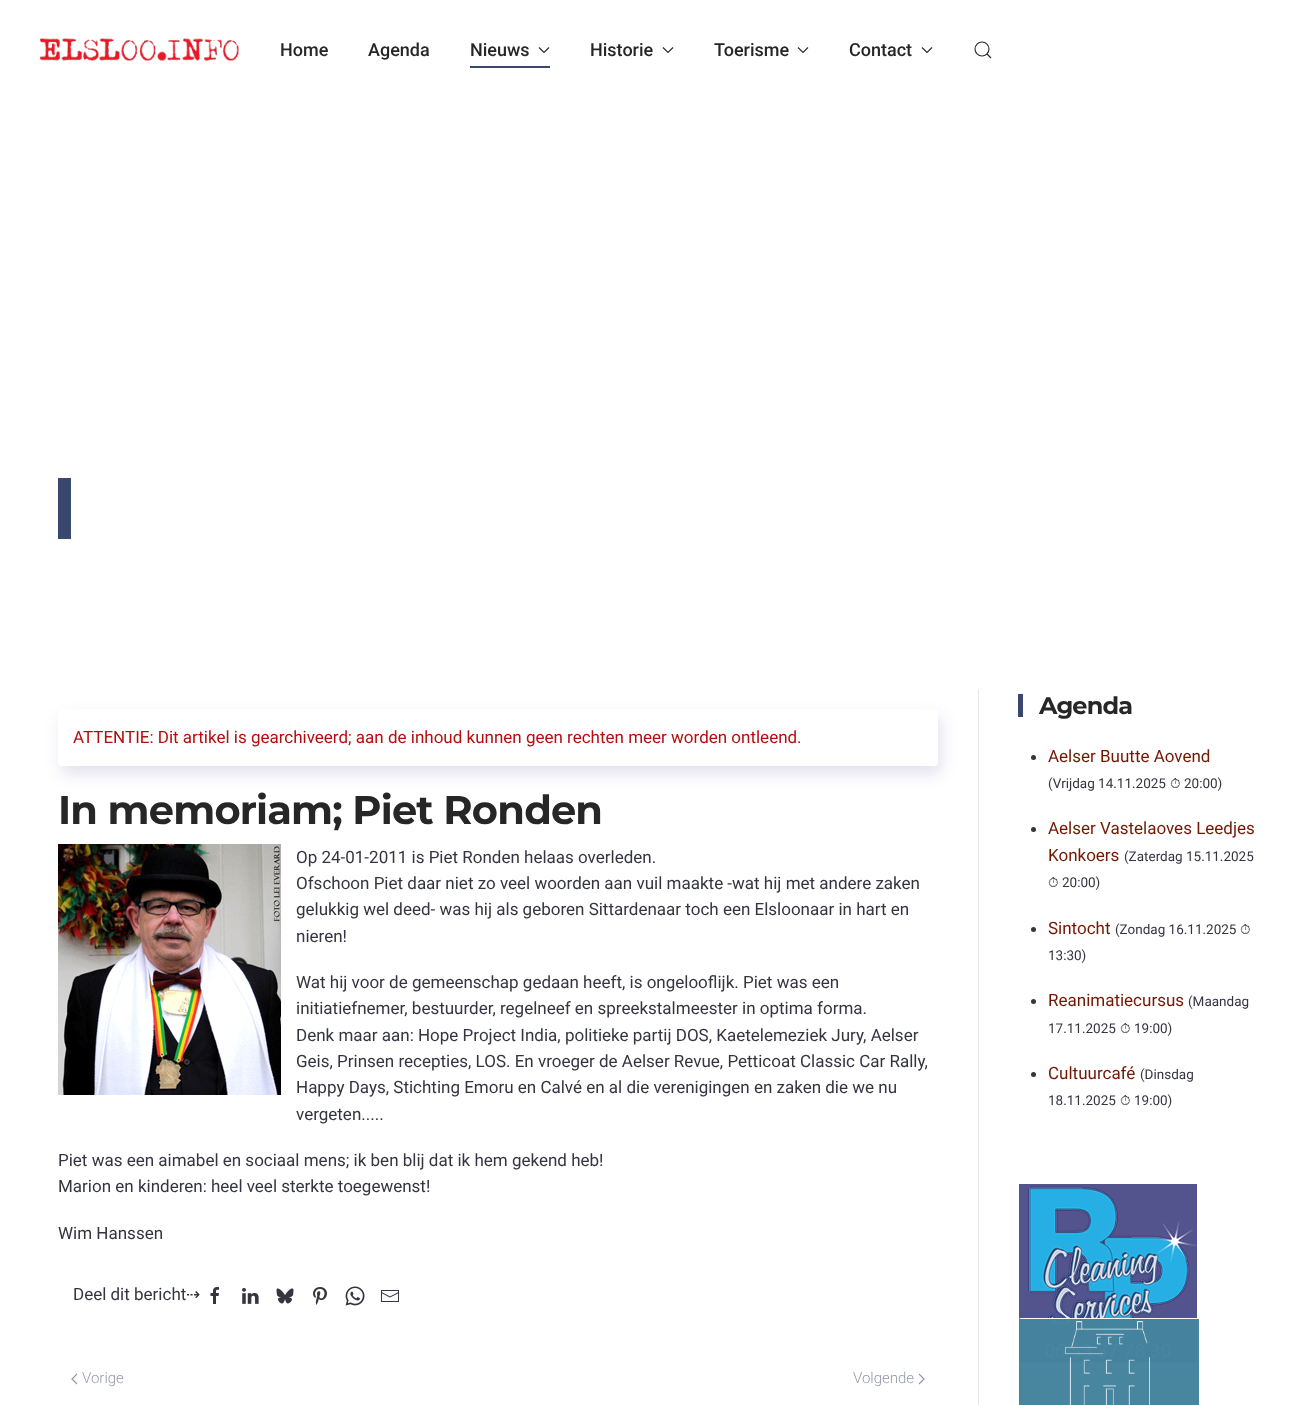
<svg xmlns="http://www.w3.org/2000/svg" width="1316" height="1405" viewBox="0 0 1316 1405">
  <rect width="100%" height="100%" fill="rgb(255,255,255)"/>
  <image x="40" y="38" width="200" height="23" href="pic1.png"/>
  <g font-family="Roboto" font-size="18" font-weight="500" fill="rgb(38,38,38)">
    <text x="280" y="56">Home</text>
    <text x="368" y="56">Agenda</text>
    <text x="470" y="56">Nieuws</text>
  </g>
  <path d="M539 47.5L544 52.5L549 47.5" fill="none" stroke="rgb(38,38,38)" stroke-width="1.1"/>
  <rect x="470" y="66" width="80" height="2" fill="rgb(58,72,109)"/>
  <text x="590" y="56" font-family="Roboto" font-size="18" font-weight="500" fill="rgb(38,38,38)">Historie</text>
  <path d="M663 47.5L668 52.5L673 47.5" fill="none" stroke="rgb(38,38,38)" stroke-width="1.1"/>
  <text x="714" y="56" font-family="Roboto" font-size="18" font-weight="500" fill="rgb(38,38,38)">Toerisme</text>
  <path d="M798 47.5L803 52.5L808 47.5" fill="none" stroke="rgb(38,38,38)" stroke-width="1.1"/>
  <text x="849" y="56" font-family="Roboto" font-size="18" font-weight="500" fill="rgb(38,38,38)">Contact</text>
  <path d="M922 47.5L927 52.5L932 47.5" fill="none" stroke="rgb(38,38,38)" stroke-width="1.1"/>
  <circle cx="982" cy="49" r="7" fill="none" stroke="rgb(38,38,38)" stroke-width="1.1"/>
  <path d="M987 54L991 58Z" fill="none" stroke="rgb(38,38,38)" stroke-width="1.1"/>
  <rect x="58" y="478" width="13" height="61" fill="rgb(58,72,109)"/>
  <rect x="61" y="717" width="880" height="57" rx="4" fill="rgba(23,0,118,0.12)" filter="blur(8px)"/>
  <rect x="58" y="709" width="880" height="57" rx="4" fill="rgb(255,255,255)"/>
  <text x="73" y="743" font-family="Roboto" font-size="17" fill="rgb(180,14,13)">ATTENTIE: Dit artikel is gearchiveerd; aan de inhoud kunnen geen rechten meer worden ontleend.</text>
  <text x="58" y="824" font-family="Montserrat" font-size="40" font-weight="100" letter-spacing="-0.85" fill="rgb(38,38,38)">In memoriam; Piet Ronden</text>
  <image x="58" y="844" width="223" height="251" href="pic2.png"/>
  <g font-family="Roboto" font-size="17" fill="rgb(52,53,64)">
    <text>
      <tspan x="296" y="863">Op 24-01-2011 is Piet Ronden helaas overleden.</tspan>
      <tspan x="296" y="889">Ofschoon Piet daar niet zo veel woorden aan vuil maakte -wat hij met andere zaken</tspan>
      <tspan x="296" y="915">gelukkig wel deed- was hij als geboren Sittardenaar toch een Elsloonaar in hart en</tspan>
      <tspan x="296" y="942">nieren!</tspan>
    </text>
    <text>
      <tspan x="296" y="988">Wat hij voor de gemeenschap gedaan heeft, is ongelooflijk. Piet was een</tspan>
      <tspan x="296" y="1014">initiatiefnemer, bestuurder, regelneef en spreekstalmeester in optima forma.</tspan>
      <tspan x="296" y="1041">Denk maar aan: Hope Project India, politieke partij DOS, Kaetelemeziek Jury, Aelser</tspan>
      <tspan x="296" y="1067">Geis, Prinsen recepties, LOS. En vroeger de Aelser Revue, Petticoat Classic Car Rally,</tspan>
      <tspan x="296" y="1093">Happy Days, Stichting Emoru en Calvé en al die verenigingen en zaken die we nu</tspan>
      <tspan x="296" y="1120">vergeten.....</tspan>
    </text>
    <text>
      <tspan x="58" y="1166">Piet was een aimabel en sociaal mens; ik ben blij dat ik hem gekend heb!</tspan>
      <tspan x="58" y="1192">Marion en kinderen: heel veel sterkte toegewenst!</tspan>
    </text>
    <text x="58" y="1239">Wim Hanssen</text>
    <text x="73" y="1300">Deel dit bericht</text>
  </g>
  <text x="186" y="1300" font-family="DejaVu Sans" font-size="17" fill="rgb(52,53,64)">⇢</text>
  <image x="210" y="1287" width="9" height="17" href="pic3.png"/>
  <image x="242" y="1288" width="17" height="16" href="pic4.png"/>
  <image x="276" y="1288" width="18" height="16" href="pic5.png"/>
  <image x="313" y="1287" width="14" height="18" href="pic6.png"/>
  <image x="345" y="1286" width="20" height="20" href="pic7.png"/>
  <image x="381" y="1290" width="18" height="12" href="pic8.png"/>
  <path d="M77 1374L72 1379L77 1384" fill="none" stroke="rgb(146,153,170)" stroke-width="1.2"/>
  <g font-family="Roboto" font-size="15" font-weight="300" fill="rgb(146,153,170)">
    <text x="82" y="1383">Vorige</text>
    <text x="853" y="1383">Volgende</text>
  </g>
  <path d="M919 1374L924 1379L919 1384" fill="none" stroke="rgb(146,153,170)" stroke-width="1.2"/>
  <rect x="978" y="689" width="1" height="716" fill="rgb(230,230,230)"/>
  <rect x="1018" y="694" width="5" height="23" fill="rgb(58,72,109)"/>
  <text x="1039" y="714" font-family="Montserrat" font-size="24" font-weight="100" letter-spacing="-0.85" fill="rgb(38,38,38)">Agenda</text>
  <circle cx="1033.5" cy="757.5" r="2.5" fill="rgb(52,53,64)"/>
  <text x="1048" y="762" font-family="Roboto" font-size="17" fill="rgb(115,23,2)">Aelser Buutte Aovend</text>
  <text x="1048" y="788" font-family="Roboto" font-size="13.5" fill="rgb(52,53,64)">(Vrijdag 14.11.2025</text>
  <text x="1170" y="788" font-family="FreeSerif" font-size="13.5" fill="rgb(52,53,64)">⏱</text>
  <text x="1184" y="788" font-family="Roboto" font-size="13.5" fill="rgb(52,53,64)">20:00)</text>
  <circle cx="1033.5" cy="829.5" r="2.5" fill="rgb(52,53,64)"/>
  <g font-family="Roboto" font-size="17" fill="rgb(115,23,2)">
    <text>
      <tspan x="1048" y="834">Aelser Vastelaoves Leedjes</tspan>
      <tspan x="1048" y="861">Konkoers</tspan>
    </text>
  </g>
  <text x="1124" y="861" font-family="Roboto" font-size="13.5" fill="rgb(52,53,64)">(Zaterdag 15.11.2025</text>
  <text x="1048" y="887" font-family="FreeSerif" font-size="13.5" fill="rgb(52,53,64)">⏱</text>
  <text x="1062" y="887" font-family="Roboto" font-size="13.5" fill="rgb(52,53,64)">20:00)</text>
  <circle cx="1033.5" cy="929.5" r="2.5" fill="rgb(52,53,64)"/>
  <text x="1048" y="934" font-family="Roboto" font-size="17" fill="rgb(115,23,2)">Sintocht</text>
  <text x="1115" y="934" font-family="Roboto" font-size="13.5" fill="rgb(52,53,64)">(Zondag 16.11.2025</text>
  <text x="1240" y="934" font-family="FreeSerif" font-size="13.5" fill="rgb(52,53,64)">⏱</text>
  <text x="1048" y="960" font-family="Roboto" font-size="13.5" fill="rgb(52,53,64)">13:30)</text>
  <circle cx="1033.5" cy="1001.5" r="2.5" fill="rgb(52,53,64)"/>
  <text x="1048" y="1006" font-family="Roboto" font-size="17" fill="rgb(115,23,2)">Reanimatiecursus</text>
  <g font-family="Roboto" font-size="13.5" fill="rgb(52,53,64)">
    <text x="1188" y="1006">(Maandag</text>
    <text x="1048" y="1033">17.11.2025</text>
  </g>
  <text x="1120" y="1033" font-family="FreeSerif" font-size="13.5" fill="rgb(52,53,64)">⏱</text>
  <text x="1134" y="1033" font-family="Roboto" font-size="13.5" fill="rgb(52,53,64)">19:00)</text>
  <circle cx="1033.5" cy="1074.5" r="2.5" fill="rgb(52,53,64)"/>
  <text x="1048" y="1079" font-family="Roboto" font-size="17" fill="rgb(115,23,2)">Cultuurcafé</text>
  <g font-family="Roboto" font-size="13.5" fill="rgb(52,53,64)">
    <text x="1140" y="1079">(Dinsdag</text>
    <text x="1048" y="1105">18.11.2025</text>
  </g>
  <text x="1120" y="1105" font-family="FreeSerif" font-size="13.5" fill="rgb(52,53,64)">⏱</text>
  <text x="1134" y="1105" font-family="Roboto" font-size="13.5" fill="rgb(52,53,64)">19:00)</text>
  <image x="1019" y="1184" width="178" height="178" href="pic9.png"/>
  <rect x="1018" y="1318" width="240" height="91" rx="4" fill="rgba(255,255,255,0.85)"/>
  <rect x="1018.5" y="1318.5" width="239" height="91" rx="3.5" fill="none" stroke="rgba(255,255,255,0.85)"/>
  <image x="1019" y="1319" width="180" height="86" href="pic10.png"/>
</svg>
